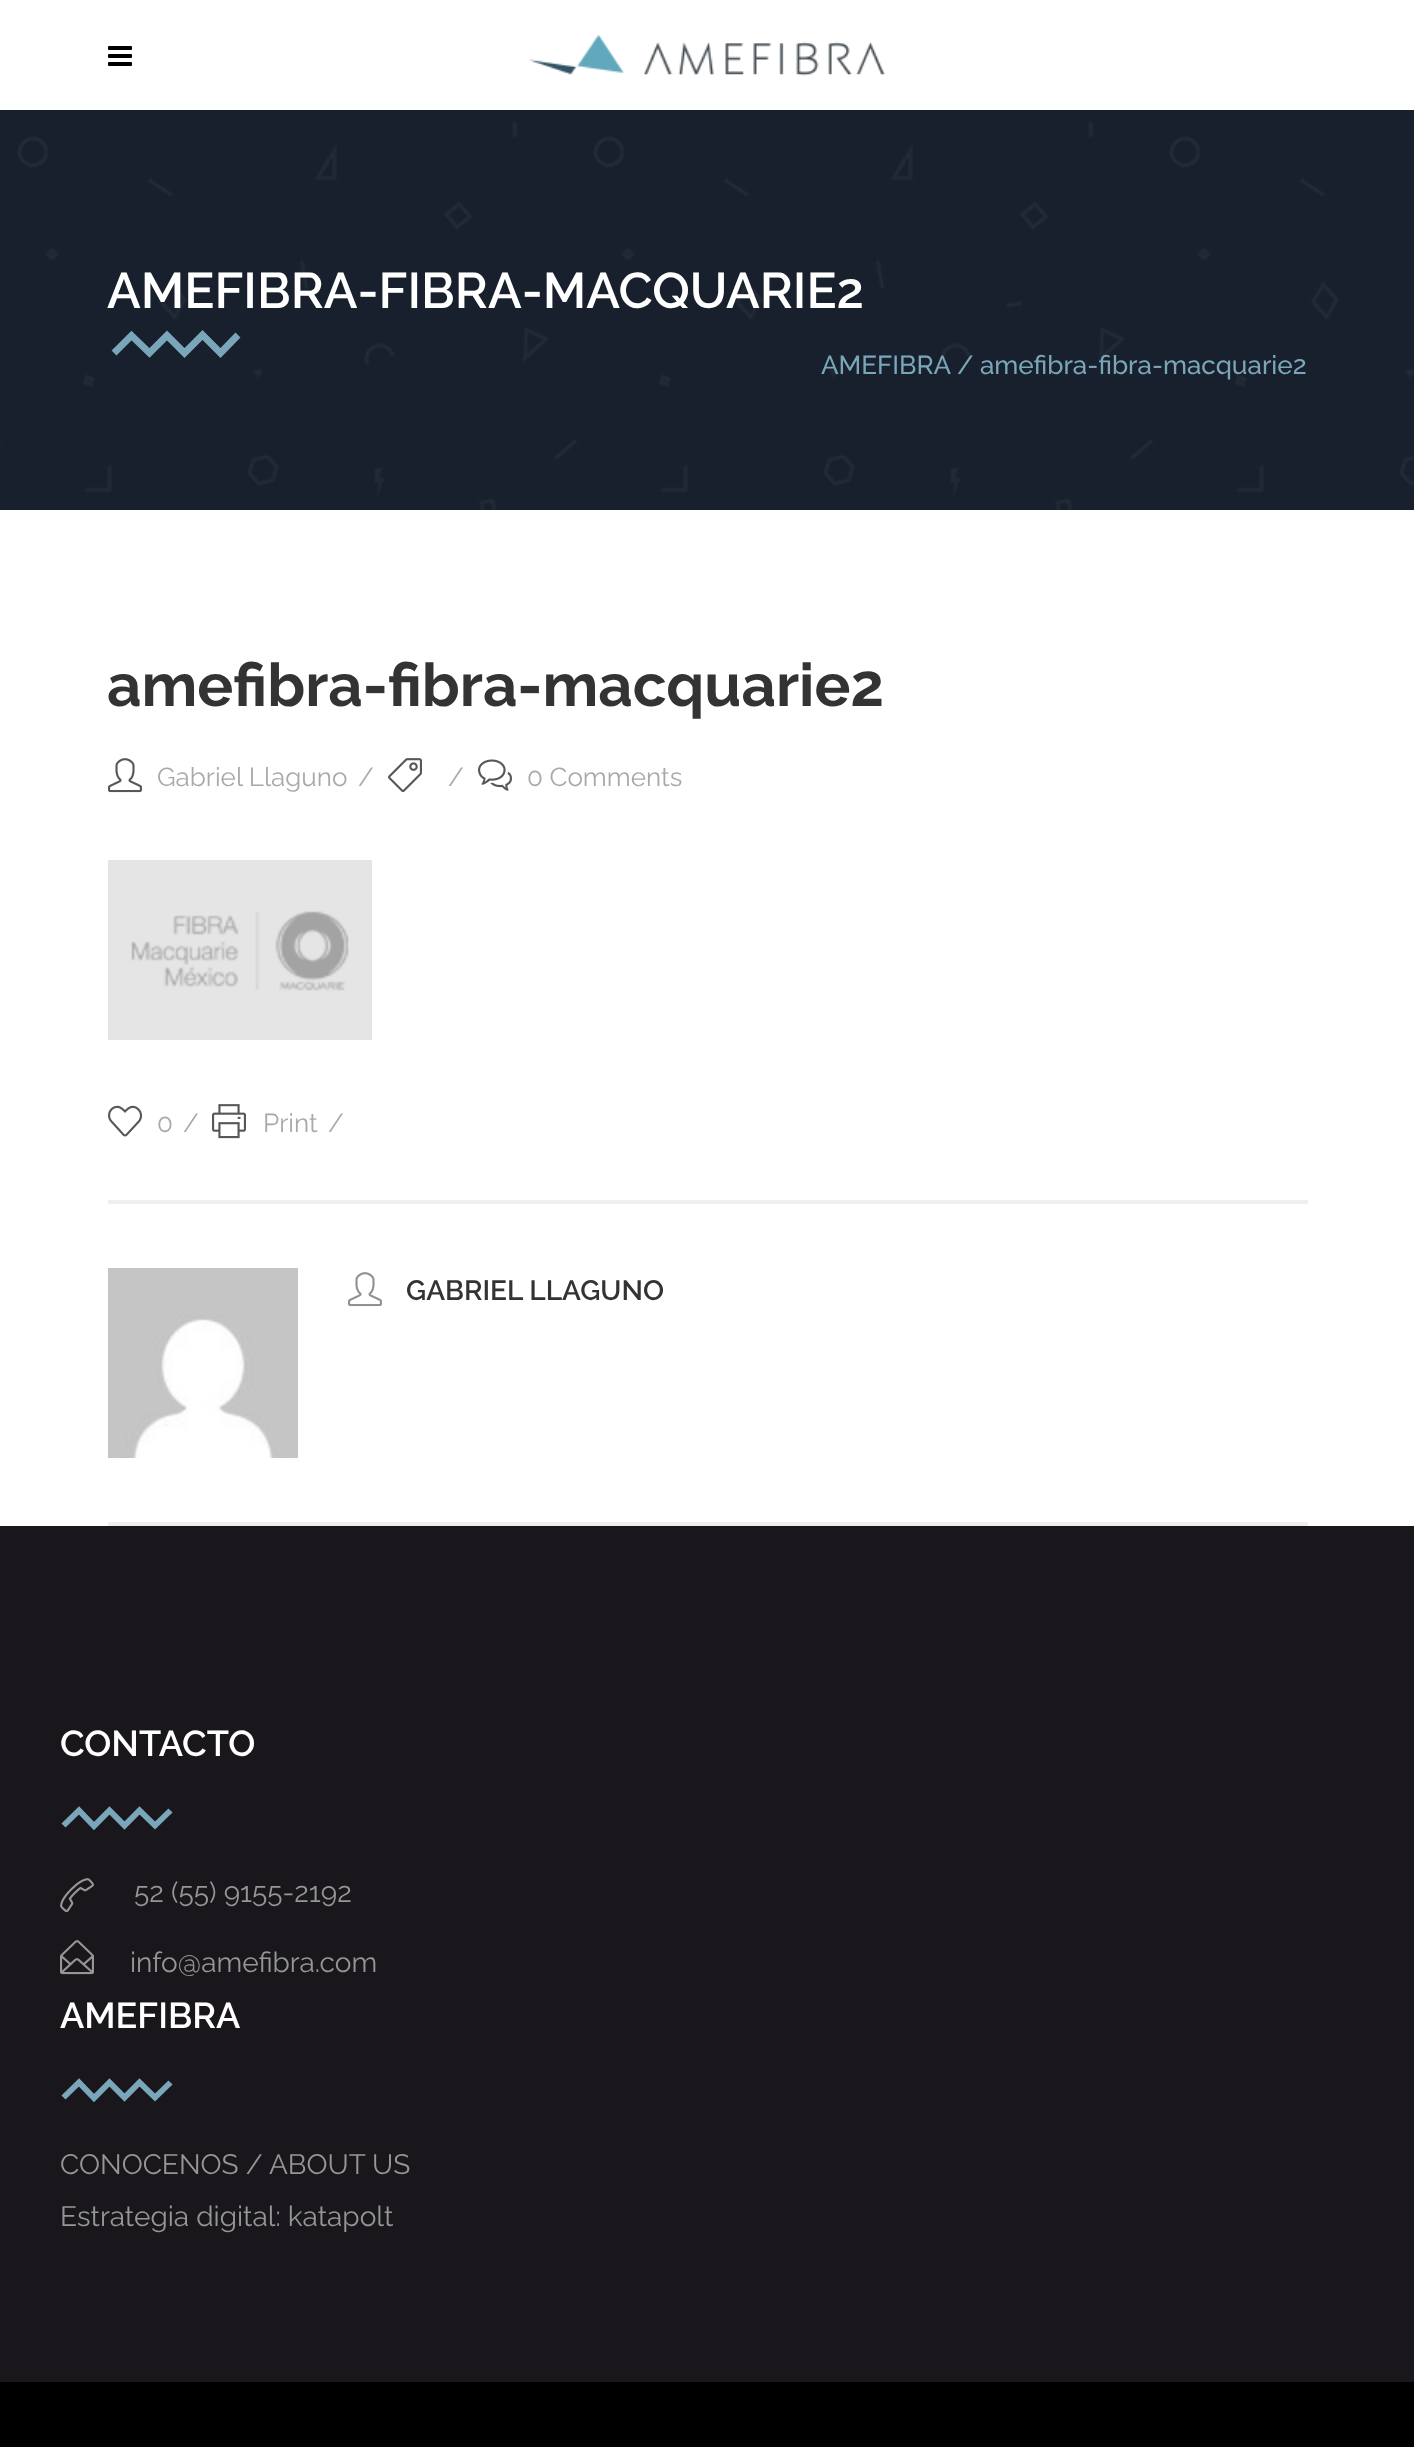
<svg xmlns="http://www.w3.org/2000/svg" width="1414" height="2447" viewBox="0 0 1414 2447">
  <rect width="100%" height="100%" fill="rgb(255,255,255)"/>
  <image x="108" y="46" width="24" height="20" href="pic1.png"/>
  <image x="529" y="34" width="356" height="42" href="pic2.png"/>
  <rect x="0" y="110" width="1414" height="400" fill="rgb(24,32,45)"/>
  <image x="0" y="121" width="1414" height="389" href="pic3.png"/>
  <text x="107" y="308" font-family="Raleway" font-size="50" font-weight="600" fill="rgb(255,255,255)">AMEFIBRA-FIBRA-MACQUARIE2</text>
  <path d="M114 353L131.5 335.5L149.5 353L167 335.5L184.5 353L202.5 335L220.5 353L238 335" fill="none" stroke="rgb(122,166,186)" stroke-width="6.9"/>
  <text x="821" y="374" font-family="Raleway" font-size="26" font-weight="500" fill="rgb(122,166,186)">AMEFIBRA / amefibra-fibra-macquarie2</text>
  <rect x="108" y="1200" width="1200" height="4" fill="rgb(239,239,239)"/>
  <text x="107" y="706" font-family="Raleway" font-size="60" font-weight="bold" fill="rgb(51,51,51)">amefibra-fibra-macquarie2</text>
  <image x="108" y="758" width="34" height="35" href="pic4.png"/>
  <g font-family="Raleway" font-size="26" fill="rgb(169,169,169)">
    <text x="157" y="786">Gabriel Llaguno</text>
    <text x="358" y="786">/</text>
  </g>
  <image x="388" y="758" width="34" height="35" href="pic5.png"/>
  <text x="448" y="786" font-family="Raleway" font-size="26" fill="rgb(169,169,169)">/</text>
  <image x="478" y="759" width="34" height="32" href="pic6.png"/>
  <text x="527" y="786" font-family="Raleway" font-size="26" fill="rgb(169,169,169)">0 Comments</text>
  <image x="108" y="860" width="264" height="180" href="pic7.png"/>
  <image x="108" y="1105" width="35" height="32" href="pic8.png"/>
  <g font-family="Raleway" font-size="26" fill="rgb(169,169,169)">
    <text x="157" y="1132">0</text>
    <text x="183" y="1132">/</text>
  </g>
  <image x="212" y="1104" width="34" height="35" href="pic9.png"/>
  <g font-family="Raleway" font-size="26" fill="rgb(169,169,169)">
    <text x="263" y="1132">Print</text>
    <text x="328" y="1132">/</text>
  </g>
  <rect x="108" y="1522" width="1200" height="4" fill="rgb(239,239,239)"/>
  <image x="108" y="1268" width="190" height="190" href="pic10.png"/>
  <image x="348" y="1272" width="34" height="35" href="pic11.png"/>
  <text x="406" y="1300" font-family="Raleway" font-size="28" font-weight="600" fill="rgb(51,51,51)">GABRIEL LLAGUNO</text>
  <rect x="0" y="1526" width="1414" height="856" fill="rgb(25,23,27)"/>
  <text x="60" y="1756" font-family="Raleway" font-size="36" font-weight="600" fill="rgb(255,255,255)">CONTACTO</text>
  <path d="M63.5 1825.5L79 1810.5L94 1826L109.5 1810.5L124.5 1825.5L139.5 1810.5L155 1825.5L170.5 1810.5" fill="none" stroke="rgb(122,166,186)" stroke-width="5.9"/>
  <image x="60" y="1878" width="34" height="35" href="pic12.png"/>
  <text x="134" y="1902" font-family="Raleway" font-size="28" fill="rgb(150,150,150)">52 (55) 9155-2192</text>
  <image x="60" y="1940" width="34" height="35" href="pic13.png"/>
  <text x="130" y="1972" font-family="Raleway" font-size="28" fill="rgb(150,150,150)">info@amefibra.com</text>
  <text x="60" y="2028" font-family="Raleway" font-size="36" font-weight="600" fill="rgb(255,255,255)">AMEFIBRA</text>
  <path d="M63.5 2097.5L79 2082.5L94 2098L109.5 2082.5L124.5 2097.5L139.5 2082.5L155 2097.5L170.5 2082.5" fill="none" stroke="rgb(122,166,186)" stroke-width="5.9"/>
  <g font-family="Raleway" font-size="28" fill="rgb(150,150,150)">
    <text>
      <tspan x="60" y="2174">CONOCENOS / ABOUT US</tspan>
      <tspan x="60" y="2226">Estrategia digital: katapolt</tspan>
    </text>
  </g>
  <rect x="0" y="2382" width="1414" height="65" fill="rgb(0,0,0)"/>
</svg>
